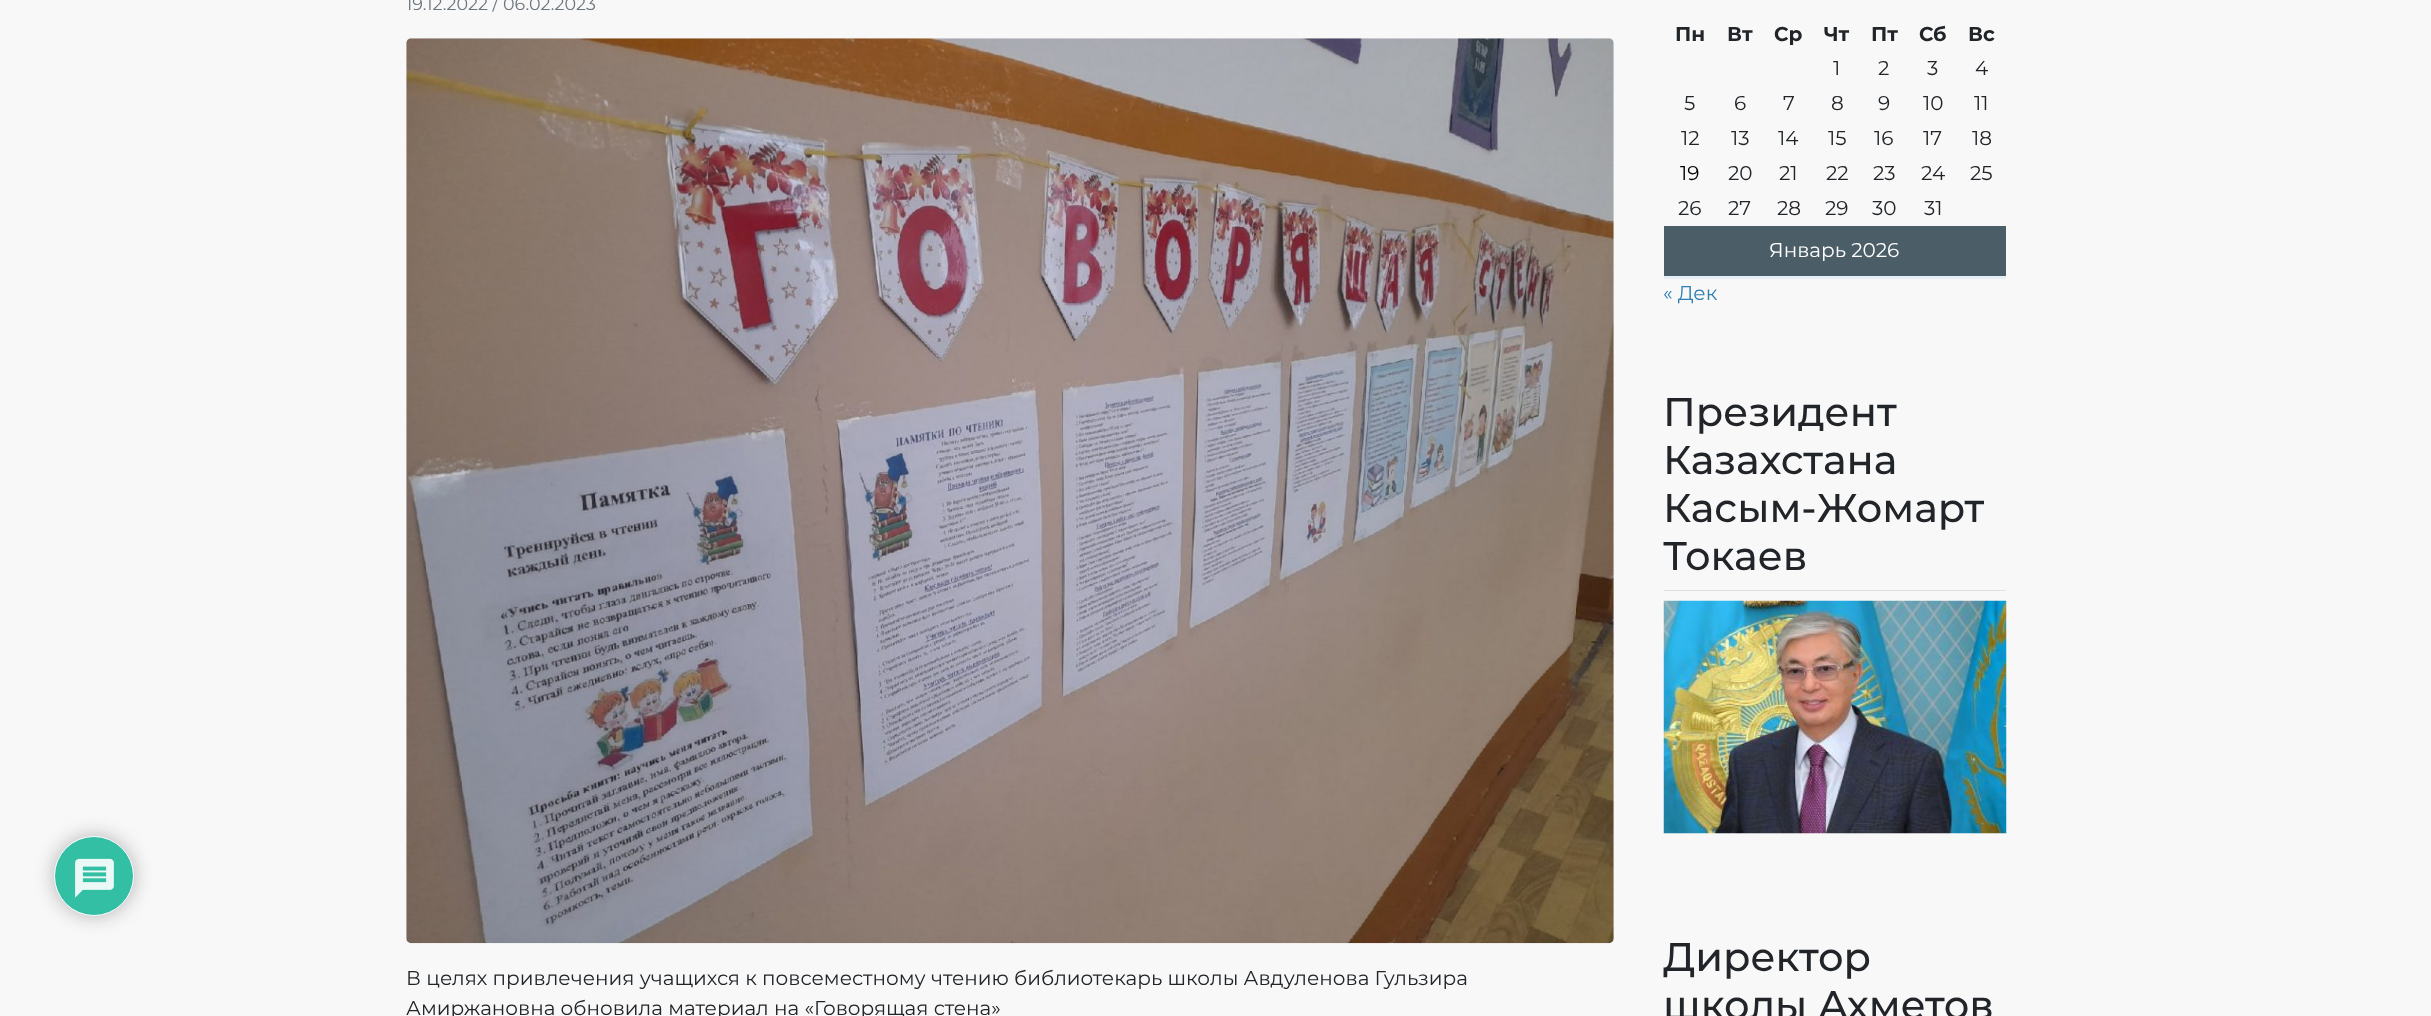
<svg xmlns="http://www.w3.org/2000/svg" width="2431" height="1016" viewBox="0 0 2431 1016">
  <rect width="100%" height="100%" fill="rgb(248,248,248)"/>
  <rect x="54" y="836" width="80" height="80" rx="40" fill="rgb(178,178,178)" filter="blur(9.5px)"/>
  <circle cx="94" cy="876" r="39.5" fill="rgb(51,191,163)" stroke="rgb(254,254,254)"/>
  <image x="75" y="858" width="39" height="40" href="pic1.png"/>
  <text x="406" y="10" font-family="Montserrat" font-size="17.5" fill="rgb(108,117,125)">19.12.2022 / 06.02.2023</text>
  <image x="406" y="38" width="1208" height="906" href="pic2.png"/>
  <g font-family="Montserrat" font-size="20" fill="rgb(33,37,41)">
    <text>
      <tspan x="406" y="985">В целях привлечения учащихся к повсеместному чтению библиотекарь школы Авдуленова Гульзира</tspan>
      <tspan x="406" y="1015">Амиржановна обновила материал на «Говорящая стена»</tspan>
    </text>
  </g>
  <g font-family="Montserrat" font-size="20" font-weight="bold" fill="rgb(33,37,41)">
    <text x="1675" y="41">Пн</text>
    <text x="1727" y="41">Вт</text>
    <text x="1774" y="41">Ср</text>
    <text x="1824" y="41">Чт</text>
    <text x="1871" y="41">Пт</text>
    <text x="1919" y="41">Сб</text>
    <text x="1968" y="41">Вс</text>
  </g>
  <g font-family="Montserrat" font-size="20" fill="rgb(33,37,41)">
    <text x="1833" y="75">1</text>
    <text x="1878" y="75">2</text>
    <text x="1927" y="75">3</text>
    <text x="1975" y="75">4</text>
    <text x="1684" y="110">5</text>
    <text x="1734" y="110">6</text>
    <text x="1783" y="110">7</text>
    <text x="1831" y="110">8</text>
    <text x="1878" y="110">9</text>
    <text x="1923" y="110">10</text>
    <text x="1974" y="110">11</text>
    <text x="1681" y="145">12</text>
    <text x="1731" y="145">13</text>
    <text x="1778" y="145">14</text>
    <text x="1828" y="145">15</text>
    <text x="1874" y="145">16</text>
    <text x="1923" y="145">17</text>
    <text x="1972" y="145">18</text>
  </g>
  <text x="1680" y="180" font-family="Montserrat" font-size="20" fill="rgb(0,0,0)">19</text>
  <g font-family="Montserrat" font-size="20" fill="rgb(33,37,41)">
    <text x="1728" y="180">20</text>
    <text x="1779" y="180">21</text>
    <text x="1826" y="180">22</text>
    <text x="1873" y="180">23</text>
    <text x="1921" y="180">24</text>
    <text x="1970" y="180">25</text>
    <text x="1678" y="215">26</text>
    <text x="1728" y="215">27</text>
    <text x="1777" y="215">28</text>
    <text x="1825" y="215">29</text>
    <text x="1872" y="215">30</text>
    <text x="1924" y="215">31</text>
  </g>
  <rect x="1664" y="226" width="342" height="50" fill="rgb(75,93,103)"/>
  <rect x="1664" y="276" width="342" height="3" fill="rgb(230,238,247)"/>
  <text x="1769" y="257" font-family="Montserrat" font-size="20" fill="rgb(255,255,255)">Январь 2026</text>
  <text x="1663" y="300" font-family="Montserrat" font-size="20" fill="rgb(47,127,178)">« Дек</text>
  <rect x="1664" y="590" width="342" height="1" fill="rgb(222,226,230)"/>
  <g font-family="Montserrat" font-size="40" font-weight="500" fill="rgb(33,37,41)">
    <text>
      <tspan x="1663" y="426">Президент</tspan>
      <tspan x="1663" y="474">Казахстана</tspan>
      <tspan x="1663" y="522">Касым-Жомарт</tspan>
      <tspan x="1663" y="570">Токаев</tspan>
    </text>
  </g>
  <image x="1663" y="600" width="344" height="234" href="pic3.png"/>
  <g font-family="Montserrat" font-size="40" font-weight="500" fill="rgb(33,37,41)">
    <text>
      <tspan x="1663" y="971">Директор</tspan>
      <tspan x="1663" y="1019">школы Ахметов</tspan>
    </text>
  </g>
</svg>
